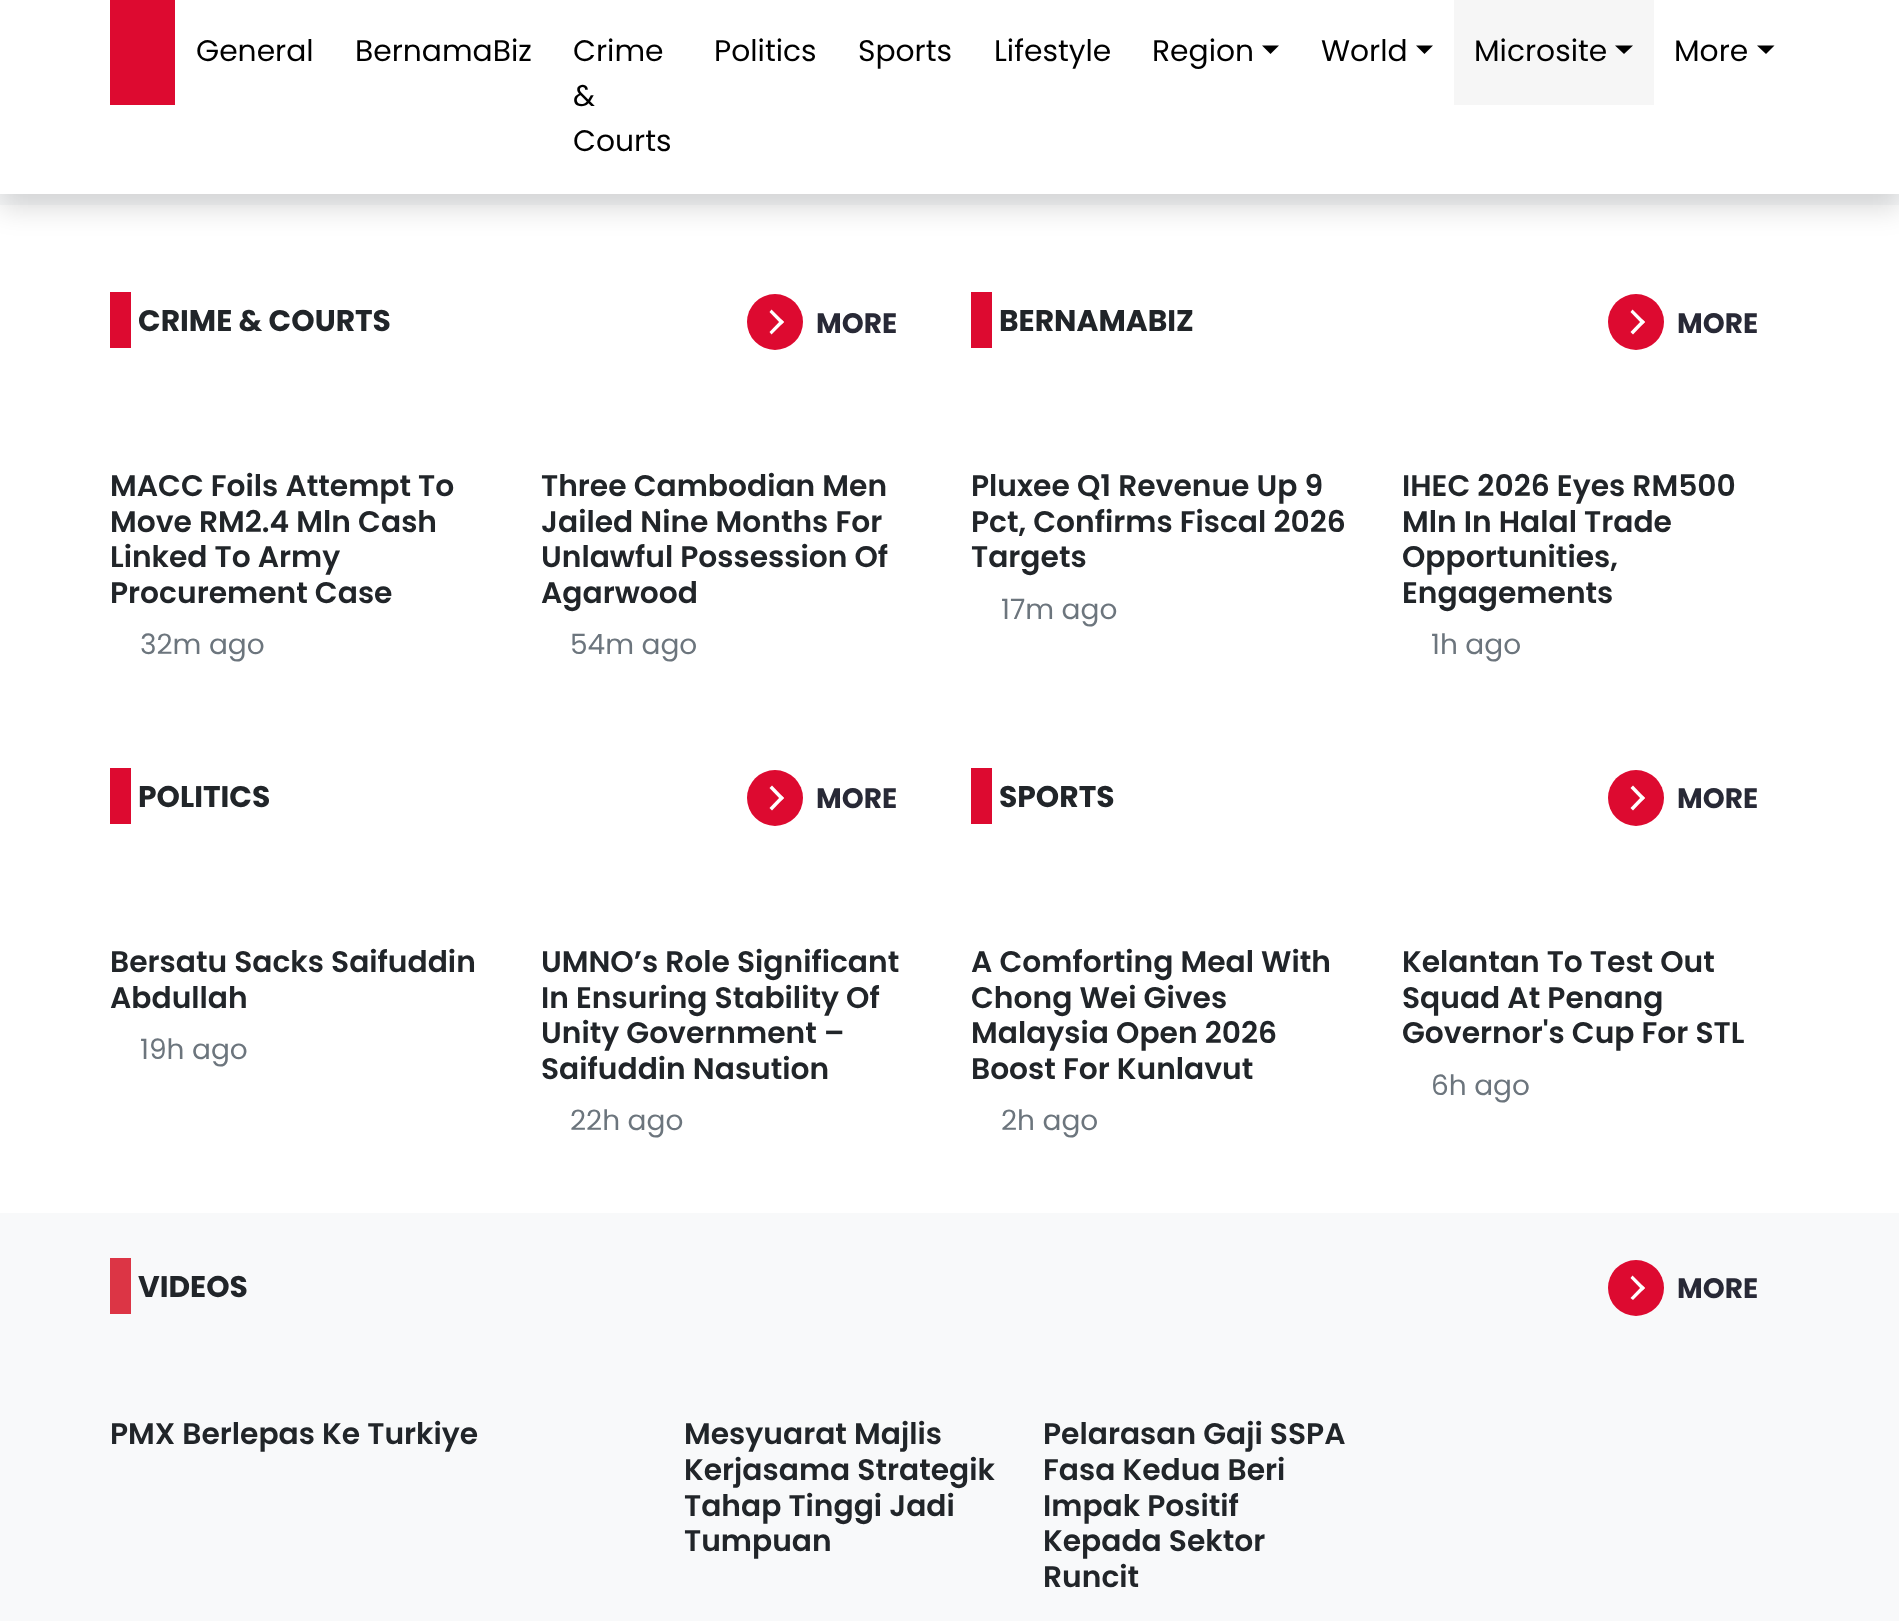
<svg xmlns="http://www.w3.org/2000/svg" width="1899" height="1621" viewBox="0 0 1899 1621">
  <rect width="100%" height="100%" fill="rgb(255,255,255)"/>
  <rect x="0" y="194" width="1899" height="11" fill="rgb(248,249,250)"/>
  <rect x="0" y="14" width="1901" height="194" fill="rgba(0,0,0,0.15)" filter="blur(14px)"/>
  <rect x="0" y="0" width="1899" height="194" fill="rgb(255,255,255)"/>
  <rect x="110" y="0" width="65" height="105" fill="rgb(221,10,48)"/>
  <g font-family="Poppins" font-size="29.75" fill="rgb(0,0,0)">
    <text x="196" y="61">General</text>
    <text x="355" y="61">BernamaBiz</text>
    <text>
      <tspan x="573" y="61">Crime</tspan>
      <tspan x="573" y="106">&amp;</tspan>
      <tspan x="573" y="151">Courts</tspan>
    </text>
    <text x="714" y="61">Politics</text>
    <text x="858" y="61">Sports</text>
    <text x="994" y="61">Lifestyle</text>
    <text x="1152" y="61">Region</text>
  </g>
  <path d="M1262 45.5H1279L1270.5 54Z" fill="rgb(0,0,0)"/>
  <text x="1321" y="61" font-family="Poppins" font-size="29.75" fill="rgb(0,0,0)">World</text>
  <path d="M1416 45.5H1433L1424.5 54Z" fill="rgb(0,0,0)"/>
  <rect x="1454" y="0" width="200" height="105" fill="rgb(246,246,246)"/>
  <text x="1474" y="61" font-family="Poppins" font-size="29.75" fill="rgb(0,0,0)">Microsite</text>
  <path d="M1615 45.5H1633L1624 54Z" fill="rgb(0,0,0)"/>
  <text x="1674" y="61" font-family="Poppins" font-size="29.75" fill="rgb(0,0,0)">More</text>
  <path d="M1757 45.5H1774.5L1766 54Z" fill="rgb(0,0,0)"/>
  <rect x="110" y="292" width="21" height="56" fill="rgb(221,10,48)"/>
  <text x="138" y="331" font-family="Poppins" font-size="29.75" font-weight="bold" fill="rgb(33,37,41)">CRIME &amp; COURTS</text>
  <circle cx="775" cy="322" r="28" fill="rgb(221,10,48)"/>
  <path d="M771.5 309.5L784 322L781.5 324.5L769.5 312Z" fill="rgb(255,255,255)"/>
  <path d="M781.5 319.5L784 322L771.5 334.5L769.5 332Z" fill="rgb(255,255,255)"/>
  <text x="816" y="333" font-family="Poppins" font-size="28" font-weight="bold" fill="rgb(40,41,54)">MORE</text>
  <g font-family="Poppins" font-size="29.75" font-weight="600" fill="rgb(33,37,41)">
    <text>
      <tspan x="110" y="496">MACC Foils Attempt To</tspan>
      <tspan x="110" y="532">Move RM2.4 Mln Cash</tspan>
      <tspan x="110" y="567">Linked To Army</tspan>
      <tspan x="110" y="603">Procurement Case</tspan>
    </text>
  </g>
  <text x="140" y="654" font-family="Poppins" font-size="28" fill="rgb(108,117,125)">32m ago</text>
  <g font-family="Poppins" font-size="29.75" font-weight="600" fill="rgb(33,37,41)">
    <text>
      <tspan x="541" y="496">Three Cambodian Men</tspan>
      <tspan x="541" y="532">Jailed Nine Months For</tspan>
      <tspan x="541" y="567">Unlawful Possession Of</tspan>
      <tspan x="541" y="603">Agarwood</tspan>
    </text>
  </g>
  <text x="570" y="654" font-family="Poppins" font-size="28" fill="rgb(108,117,125)">54m ago</text>
  <rect x="971" y="292" width="21" height="56" fill="rgb(221,10,48)"/>
  <text x="999" y="331" font-family="Poppins" font-size="29.75" font-weight="bold" fill="rgb(33,37,41)">BERNAMABIZ</text>
  <circle cx="1636" cy="322" r="28" fill="rgb(221,10,48)"/>
  <path d="M1632.5 309.5L1645 322L1642.5 324.5L1630.5 312Z" fill="rgb(255,255,255)"/>
  <path d="M1642.5 319.5L1645 322L1633 334.5L1630.5 332Z" fill="rgb(255,255,255)"/>
  <text x="1677" y="333" font-family="Poppins" font-size="28" font-weight="bold" fill="rgb(40,41,54)">MORE</text>
  <g font-family="Poppins" font-size="29.75" font-weight="600" fill="rgb(33,37,41)">
    <text>
      <tspan x="971" y="496">Pluxee Q1 Revenue Up 9</tspan>
      <tspan x="971" y="532">Pct, Confirms Fiscal 2026</tspan>
      <tspan x="971" y="567">Targets</tspan>
    </text>
  </g>
  <text x="1001" y="619" font-family="Poppins" font-size="28" fill="rgb(108,117,125)">17m ago</text>
  <g font-family="Poppins" font-size="29.75" font-weight="600" fill="rgb(33,37,41)">
    <text>
      <tspan x="1402" y="496">IHEC 2026 Eyes RM500</tspan>
      <tspan x="1402" y="532">Mln In Halal Trade</tspan>
      <tspan x="1402" y="567">Opportunities,</tspan>
      <tspan x="1402" y="603">Engagements</tspan>
    </text>
  </g>
  <text x="1431" y="654" font-family="Poppins" font-size="28" fill="rgb(108,117,125)">1h ago</text>
  <rect x="110" y="768" width="21" height="56" fill="rgb(221,10,48)"/>
  <text x="138" y="807" font-family="Poppins" font-size="29.75" font-weight="bold" fill="rgb(33,37,41)">POLITICS</text>
  <circle cx="775" cy="798" r="28" fill="rgb(221,10,48)"/>
  <path d="M772 785.5L784 798L781.5 800.5L769.5 788Z" fill="rgb(255,255,255)"/>
  <path d="M781.5 795.5L784 798L772 810.5L769.5 808Z" fill="rgb(255,255,255)"/>
  <text x="816" y="808" font-family="Poppins" font-size="28" font-weight="bold" fill="rgb(40,41,54)">MORE</text>
  <g font-family="Poppins" font-size="29.75" font-weight="600" fill="rgb(33,37,41)">
    <text>
      <tspan x="110" y="972">Bersatu Sacks Saifuddin</tspan>
      <tspan x="110" y="1008">Abdullah</tspan>
    </text>
  </g>
  <text x="140" y="1059" font-family="Poppins" font-size="28" fill="rgb(108,117,125)">19h ago</text>
  <g font-family="Poppins" font-size="29.75" font-weight="600" fill="rgb(33,37,41)">
    <text>
      <tspan x="541" y="972">UMNO’s Role Significant</tspan>
      <tspan x="541" y="1008">In Ensuring Stability Of</tspan>
      <tspan x="541" y="1043">Unity Government –</tspan>
      <tspan x="541" y="1079">Saifuddin Nasution</tspan>
    </text>
  </g>
  <text x="570" y="1130" font-family="Poppins" font-size="28" fill="rgb(108,117,125)">22h ago</text>
  <rect x="971" y="768" width="21" height="56" fill="rgb(221,10,48)"/>
  <text x="999" y="807" font-family="Poppins" font-size="29.75" font-weight="bold" fill="rgb(33,37,41)">SPORTS</text>
  <circle cx="1636" cy="798" r="28" fill="rgb(221,10,48)"/>
  <path d="M1633 785.5L1645 798L1642.5 800.5L1630.5 788Z" fill="rgb(255,255,255)"/>
  <path d="M1642.5 795.5L1645 798L1633 810.5L1630.5 808Z" fill="rgb(255,255,255)"/>
  <text x="1677" y="808" font-family="Poppins" font-size="28" font-weight="bold" fill="rgb(40,41,54)">MORE</text>
  <g font-family="Poppins" font-size="29.75" font-weight="600" fill="rgb(33,37,41)">
    <text>
      <tspan x="971" y="972">A Comforting Meal With</tspan>
      <tspan x="971" y="1008">Chong Wei Gives</tspan>
      <tspan x="971" y="1043">Malaysia Open 2026</tspan>
      <tspan x="971" y="1079">Boost For Kunlavut</tspan>
    </text>
  </g>
  <text x="1001" y="1130" font-family="Poppins" font-size="28" fill="rgb(108,117,125)">2h ago</text>
  <g font-family="Poppins" font-size="29.75" font-weight="600" fill="rgb(33,37,41)">
    <text>
      <tspan x="1402" y="972">Kelantan To Test Out</tspan>
      <tspan x="1402" y="1008">Squad At Penang</tspan>
      <tspan x="1402" y="1043">Governor's Cup For STL</tspan>
    </text>
  </g>
  <text x="1431" y="1095" font-family="Poppins" font-size="28" fill="rgb(108,117,125)">6h ago</text>
  <rect x="0" y="1213" width="1899" height="408" fill="rgb(248,249,250)"/>
  <rect x="110" y="1258" width="21" height="56" fill="rgb(220,53,69)"/>
  <text x="138" y="1297" font-family="Poppins" font-size="29.75" font-weight="bold" fill="rgb(33,37,41)">VIDEOS</text>
  <circle cx="1636" cy="1288" r="28" fill="rgb(221,10,48)"/>
  <path d="M1632.5 1275.5L1645 1288L1642.5 1290.5L1630.5 1278Z" fill="rgb(255,255,255)"/>
  <path d="M1642.5 1285.5L1645 1288L1633 1300L1630.5 1298Z" fill="rgb(255,255,255)"/>
  <text x="1677" y="1298" font-family="Poppins" font-size="28" font-weight="bold" fill="rgb(40,41,54)">MORE</text>
  <g font-family="Poppins" font-size="29.75" font-weight="600" fill="rgb(33,37,41)">
    <text x="110" y="1444">PMX Berlepas Ke Turkiye</text>
    <text>
      <tspan x="684" y="1444">Mesyuarat Majlis</tspan>
      <tspan x="684" y="1480">Kerjasama Strategik</tspan>
      <tspan x="684" y="1516">Tahap Tinggi Jadi</tspan>
      <tspan x="684" y="1551">Tumpuan</tspan>
    </text>
    <text>
      <tspan x="1043" y="1444">Pelarasan Gaji SSPA</tspan>
      <tspan x="1043" y="1480">Fasa Kedua Beri</tspan>
      <tspan x="1043" y="1516">Impak Positif</tspan>
      <tspan x="1043" y="1551">Kepada Sektor</tspan>
      <tspan x="1043" y="1587">Runcit</tspan>
    </text>
  </g>
</svg>
